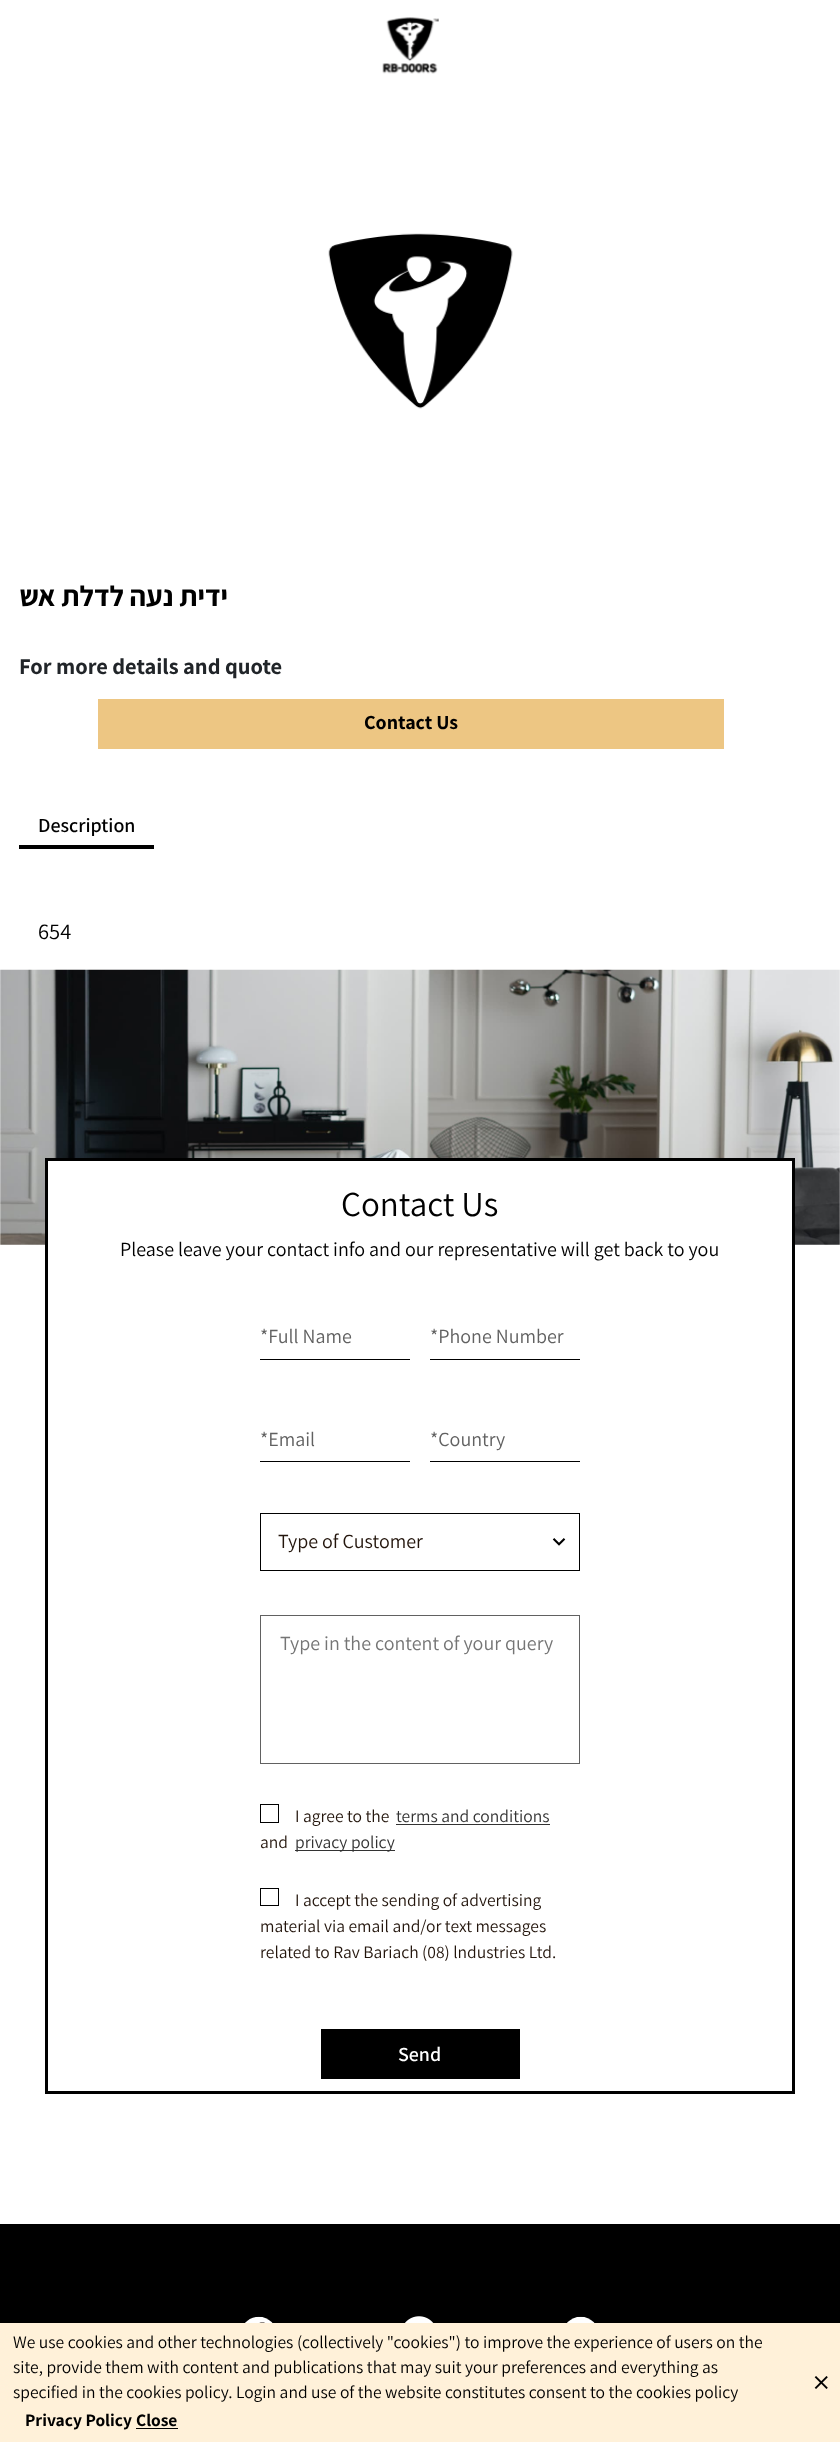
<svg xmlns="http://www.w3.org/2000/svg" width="840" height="2442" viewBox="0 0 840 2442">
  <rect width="100%" height="100%" fill="rgb(255,255,255)"/>
  <image x="382" y="17" width="57" height="57" href="pic1.png"/>
  <image x="328" y="233" width="185" height="176" href="pic2.png"/>
  <text x="228" y="606" font-family="Assistant" font-size="28.75" font-weight="bold" direction="rtl" fill="rgb(0,0,0)">ידית נעה לדלת אש</text>
  <text x="19" y="674" font-family="Assistant" font-size="22.5" font-weight="bold" fill="rgb(33,37,41)">For more details and quote</text>
  <rect x="98" y="699" width="626" height="50" fill="rgb(237,198,131)"/>
  <text x="364" y="729" font-family="Assistant" font-size="20" font-weight="bold" fill="rgb(0,0,0)">Contact Us</text>
  <text x="38" y="832" font-family="Assistant" font-size="20" font-weight="600" fill="rgb(0,0,0)">Description</text>
  <rect x="19" y="845" width="135" height="4" fill="rgb(0,0,0)"/>
  <text x="38" y="939" font-family="Assistant" font-size="22.5" fill="rgb(0,0,0)">654</text>
  <image x="0" y="969" width="840" height="276" href="pic3.png"/>
  <rect x="48" y="1161" width="744" height="84" fill="rgb(255,255,255)"/>
  <rect x="46.5" y="1159.5" width="747" height="933" fill="none" stroke="rgb(0,0,0)" stroke-width="3"/>
  <text x="341" y="1216" font-family="Assistant" font-size="35" fill="rgb(0,0,0)">Contact Us</text>
  <text x="120" y="1256" font-family="Assistant" font-size="20" fill="rgb(0,0,0)">Please leave your contact info and our representative will get back to you</text>
  <text x="260" y="1343" font-family="Assistant" font-size="20" fill="rgb(97,97,97)">*Full Name</text>
  <rect x="260" y="1359" width="150" height="1" fill="rgb(0,0,0)"/>
  <text x="430" y="1343" font-family="Assistant" font-size="20" fill="rgb(97,97,97)">*Phone Number</text>
  <rect x="430" y="1359" width="150" height="1" fill="rgb(0,0,0)"/>
  <text x="260" y="1446" font-family="Assistant" font-size="20" fill="rgb(97,97,97)">*Email</text>
  <rect x="260" y="1461" width="150" height="1" fill="rgb(0,0,0)"/>
  <text x="430" y="1446" font-family="Assistant" font-size="20" fill="rgb(97,97,97)">*Country</text>
  <rect x="430" y="1461" width="150" height="1" fill="rgb(0,0,0)"/>
  <image x="552" y="1538" width="14" height="8" href="pic4.png"/>
  <rect x="260.5" y="1513.5" width="319" height="57" fill="none" stroke="rgb(0,0,0)"/>
  <text x="278" y="1548" font-family="Assistant" font-size="20" fill="rgb(35,21,12)">Type of Customer</text>
  <rect x="260.5" y="1615.5" width="319" height="148" fill="none" stroke="rgb(97,97,97)"/>
  <text x="280" y="1650" font-family="Assistant" font-size="20" fill="rgb(117,117,117)">Type in the content of your query</text>
  <rect x="260.5" y="1804.5" width="18" height="18" fill="none" stroke="rgb(0,0,0)"/>
  <text x="295" y="1822" font-family="Assistant" font-size="17.5" fill="rgb(35,21,12)">I agree to the</text>
  <text x="396" y="1822" font-family="Assistant" font-size="17.5" fill="rgb(51,51,51)">terms and conditions</text>
  <rect x="396" y="1824" width="154" height="1" fill="rgb(51,51,51)"/>
  <text x="260" y="1848" font-family="Assistant" font-size="17.5" fill="rgb(35,21,12)">and</text>
  <rect x="295" y="1850" width="100" height="1" fill="rgb(51,51,51)"/>
  <text x="295" y="1848" font-family="Assistant" font-size="17.5" fill="rgb(51,51,51)">privacy policy</text>
  <rect x="260.5" y="1888.5" width="18" height="17" fill="none" stroke="rgb(0,0,0)"/>
  <g font-family="Assistant" font-size="17.5" fill="rgb(35,21,12)">
    <text x="295" y="1906">I accept the sending of advertising</text>
    <text>
      <tspan x="260" y="1932">material via email and/or text messages</tspan>
      <tspan x="260" y="1958">related to Rav Bariach (08) lndustries Ltd.</tspan>
    </text>
  </g>
  <rect x="321" y="2029" width="199" height="50" fill="rgb(0,0,0)"/>
  <text x="398" y="2061" font-family="Assistant" font-size="20" font-weight="600" fill="rgb(255,255,255)">Send</text>
  <rect x="0" y="2224" width="840" height="99" fill="rgb(0,0,0)"/>
  <image x="245" y="2316" width="28" height="7" href="pic5.png"/>
  <image x="405" y="2316" width="29" height="7" href="pic6.png"/>
  <image x="567" y="2316" width="28" height="7" href="pic7.png"/>
  <rect x="0" y="2323" width="840" height="119" fill="rgb(255,241,217)"/>
  <g font-family="Assistant" font-size="17.5" fill="rgb(0,0,0)">
    <text>
      <tspan x="13" y="2348">We use cookies and other technologies (collectively "cookies") to improve the experience of users on the</tspan>
      <tspan x="13" y="2373">site, provide them with content and publications that may suit your preferences and everything as</tspan>
      <tspan x="13" y="2398">specified in the cookies policy. Login and use of the website constitutes consent to the cookies policy</tspan>
    </text>
  </g>
  <g font-family="Assistant" font-size="17.5" font-weight="bold" fill="rgb(0,0,0)">
    <text x="25" y="2426">Privacy Policy</text>
    <text x="136" y="2426">Close</text>
  </g>
  <rect x="136" y="2428" width="42" height="1" fill="rgb(0,0,0)"/>
  <image x="814" y="2376" width="14" height="13" href="pic8.png"/>
</svg>
